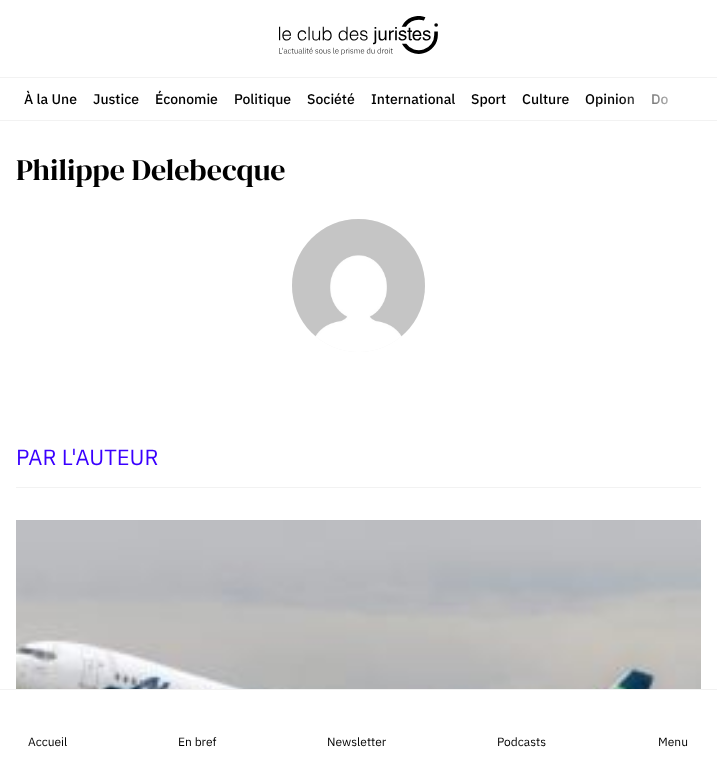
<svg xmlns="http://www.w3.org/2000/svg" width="717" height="778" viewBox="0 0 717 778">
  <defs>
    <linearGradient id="g1" gradientUnits="userSpaceOnUse" x1="617" y1="99" x2="717" y2="99"><stop offset="0" stop-color="rgb(255,255,255)" stop-opacity="0"/><stop offset="0.75" stop-color="rgb(255,255,255)"/></linearGradient>
  </defs>
  <rect width="100%" height="100%" fill="rgb(255,255,255)"/>
  <image x="279" y="16" width="159" height="39" href="pic1.png"/>
  <rect x="0" y="77" width="717" height="1" fill="rgb(242,242,242)"/>
  <rect x="0" y="120" width="717" height="1" fill="rgb(242,242,242)"/>
  <g font-family="IBM Plex Sans" font-size="14" font-weight="500" fill="rgb(0,0,0)">
    <text x="24" y="104">À la Une</text>
    <text x="93" y="104">Justice</text>
    <text x="155" y="104">Économie</text>
    <text x="234" y="104">Politique</text>
    <text x="307" y="104">Société</text>
    <text x="371" y="104">International</text>
    <text x="471" y="104">Sport</text>
    <text x="522" y="104">Culture</text>
    <text x="585" y="104">Opinion</text>
    <text x="651" y="104">Do</text>
  </g>
  <rect x="620" y="94" width="48" height="11" fill="url(#g1)"/>
  <rect x="0" y="689" width="717" height="1" fill="rgb(242,242,242)"/>
  <g font-family="IBM Plex Sans" font-size="12" fill="rgb(0,0,0)">
    <text x="28" y="746">Accueil</text>
    <text x="178" y="746">En bref</text>
    <text x="327" y="746">Newsletter</text>
    <text x="497" y="746">Podcasts</text>
    <text x="658" y="746">Menu</text>
  </g>
  <text x="16" y="180" font-family="DM Serif Display" font-size="30" fill="rgb(0,0,0)">Philippe Delebecque</text>
  <circle cx="358.5" cy="285.5" r="66.5" fill="rgb(242,242,242)"/>
  <image x="292" y="219" width="133" height="133" href="pic2.png"/>
  <rect x="16" y="487" width="685" height="1" fill="rgb(242,242,242)"/>
  <text x="16" y="465" font-family="IBM Plex Sans" font-size="22" fill="rgb(58,0,255)">PAR L'AUTEUR</text>
  <image x="16" y="520" width="685" height="169" href="pic3.png"/>
</svg>
